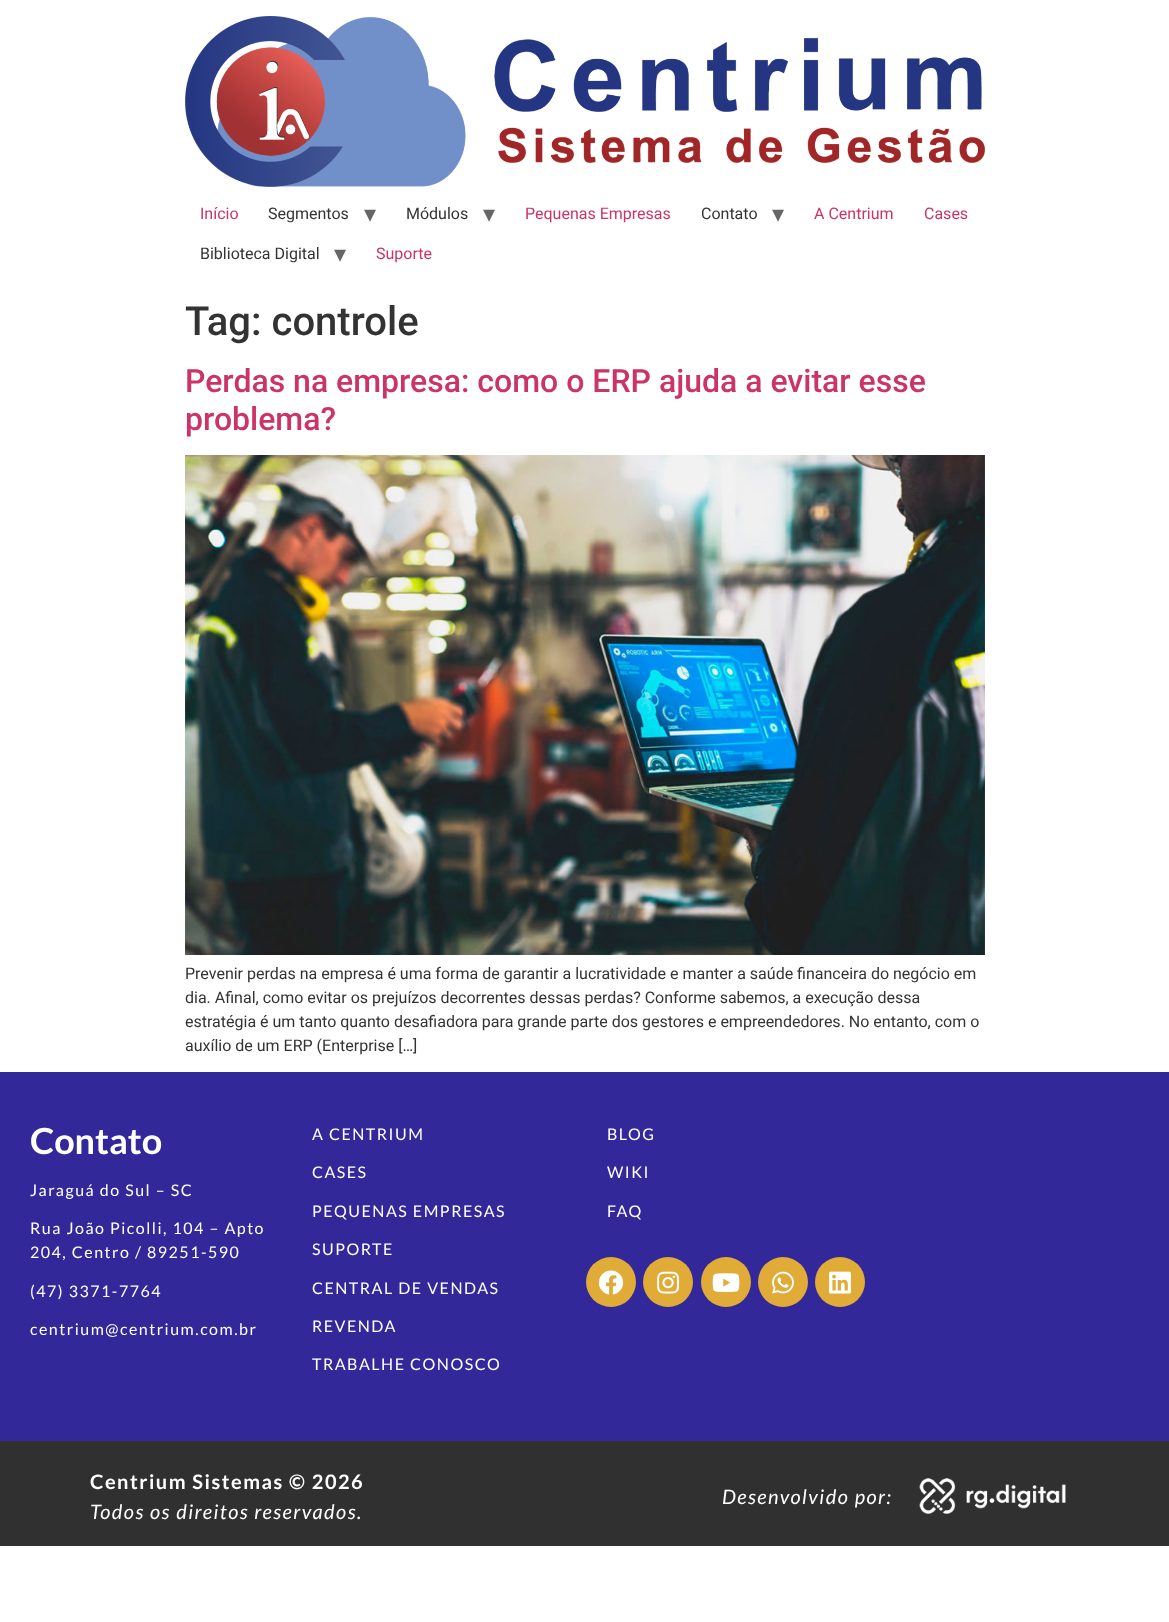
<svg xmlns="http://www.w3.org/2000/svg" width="1169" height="1622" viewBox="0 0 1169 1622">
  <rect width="100%" height="100%" fill="rgb(255,255,255)"/>
  <image x="185" y="16" width="800" height="171" href="pic1.png"/>
  <text x="200" y="219" font-family="Roboto" font-size="16" fill="rgb(204,51,102)">Início</text>
  <text x="268" y="219" font-family="Roboto" font-size="16" fill="rgb(51,51,51)">Segmentos</text>
  <text x="364" y="222" font-family="DejaVu Sans" font-size="24" fill="rgb(102,102,102)">▾</text>
  <text x="406" y="219" font-family="Roboto" font-size="16" fill="rgb(51,51,51)">Módulos</text>
  <text x="483" y="222" font-family="DejaVu Sans" font-size="24" fill="rgb(102,102,102)">▾</text>
  <text x="525" y="219" font-family="Roboto" font-size="16" fill="rgb(204,51,102)">Pequenas Empresas</text>
  <text x="701" y="219" font-family="Roboto" font-size="16" fill="rgb(51,51,51)">Contato</text>
  <text x="772" y="222" font-family="DejaVu Sans" font-size="24" fill="rgb(102,102,102)">▾</text>
  <g font-family="Roboto" font-size="16" fill="rgb(204,51,102)">
    <text x="814" y="219">A Centrium</text>
    <text x="924" y="219">Cases</text>
  </g>
  <text x="200" y="259" font-family="Roboto" font-size="16" fill="rgb(51,51,51)">Biblioteca Digital</text>
  <text x="334" y="262" font-family="DejaVu Sans" font-size="24" fill="rgb(102,102,102)">▾</text>
  <text x="376" y="259" font-family="Roboto" font-size="16" fill="rgb(204,51,102)">Suporte</text>
  <text x="185" y="335" font-family="Roboto" font-size="40" font-weight="500" fill="rgb(51,51,51)">Tag: controle</text>
  <g font-family="Roboto" font-size="32" font-weight="500" fill="rgb(204,51,102)">
    <text>
      <tspan x="185" y="392">Perdas na empresa: como o ERP ajuda a evitar esse</tspan>
      <tspan x="185" y="430">problema?</tspan>
    </text>
  </g>
  <image x="185" y="455" width="800" height="500" href="pic2.png"/>
  <g font-family="Roboto" font-size="16" fill="rgb(51,51,51)">
    <text>
      <tspan x="185" y="979">Prevenir perdas na empresa é uma forma de garantir a lucratividade e manter a saúde financeira do negócio em</tspan>
      <tspan x="185" y="1003">dia. Afinal, como evitar os prejuízos decorrentes dessas perdas? Conforme sabemos, a execução dessa</tspan>
      <tspan x="185" y="1027">estratégia é um tanto quanto desafiadora para grande parte dos gestores e empreendedores. No entanto, com o</tspan>
      <tspan x="185" y="1051">auxílio de um ERP (Enterprise […]</tspan>
    </text>
  </g>
  <rect x="0" y="1072" width="1169" height="369" fill="rgb(51,40,153)"/>
  <text x="30" y="1154" font-family="Lato" font-size="36" font-weight="bold" fill="rgb(255,255,255)">Contato</text>
  <g font-family="Lato" font-size="16" letter-spacing="1.5" fill="rgb(255,255,255)">
    <text x="30" y="1196">Jaraguá do Sul – SC</text>
    <text>
      <tspan x="30" y="1234">Rua João Picolli, 104 – Apto</tspan>
      <tspan x="30" y="1258">204, Centro / 89251-590</tspan>
    </text>
    <text x="30" y="1297">(47) 3371-7764</text>
    <text x="30" y="1335">centrium@centrium.com.br</text>
    <text x="312" y="1140">A CENTRIUM</text>
    <text x="312" y="1178">CASES</text>
    <text x="312" y="1217">PEQUENAS EMPRESAS</text>
    <text x="312" y="1255">SUPORTE</text>
    <text x="312" y="1294">CENTRAL DE VENDAS</text>
    <text x="312" y="1332">REVENDA</text>
    <text x="312" y="1370">TRABALHE CONOSCO</text>
    <text x="607" y="1140">BLOG</text>
    <text x="607" y="1178">WIKI</text>
    <text x="607" y="1217">FAQ</text>
  </g>
  <circle cx="611" cy="1282" r="25" fill="rgb(225,171,56)"/>
  <image x="598" y="1270" width="26" height="25" href="pic3.png"/>
  <circle cx="668" cy="1282" r="25" fill="rgb(225,171,56)"/>
  <image x="657" y="1271" width="22" height="23" href="pic4.png"/>
  <circle cx="726" cy="1282" r="25" fill="rgb(225,171,56)"/>
  <image x="712" y="1273" width="28" height="19" href="pic5.png"/>
  <circle cx="783" cy="1282" r="25" fill="rgb(225,171,56)"/>
  <image x="772" y="1271" width="22" height="23" href="pic6.png"/>
  <circle cx="840" cy="1282" r="25" fill="rgb(225,171,56)"/>
  <image x="829" y="1271" width="22" height="23" href="pic7.png"/>
  <rect x="0" y="1441" width="1169" height="105" fill="rgb(48,48,48)"/>
  <text x="90" y="1489" font-family="Lato" font-size="20" font-weight="bold" letter-spacing="1.5" fill="rgb(255,255,255)">Centrium Sistemas © 2026</text>
  <g font-family="Lato" font-size="20" font-style="italic" letter-spacing="1.5" fill="rgb(255,255,255)">
    <text x="90" y="1519">Todos os direitos reservados.</text>
    <text x="722" y="1504">Desenvolvido por:</text>
  </g>
  <image x="919" y="1478" width="147" height="36" href="pic8.png"/>
</svg>
